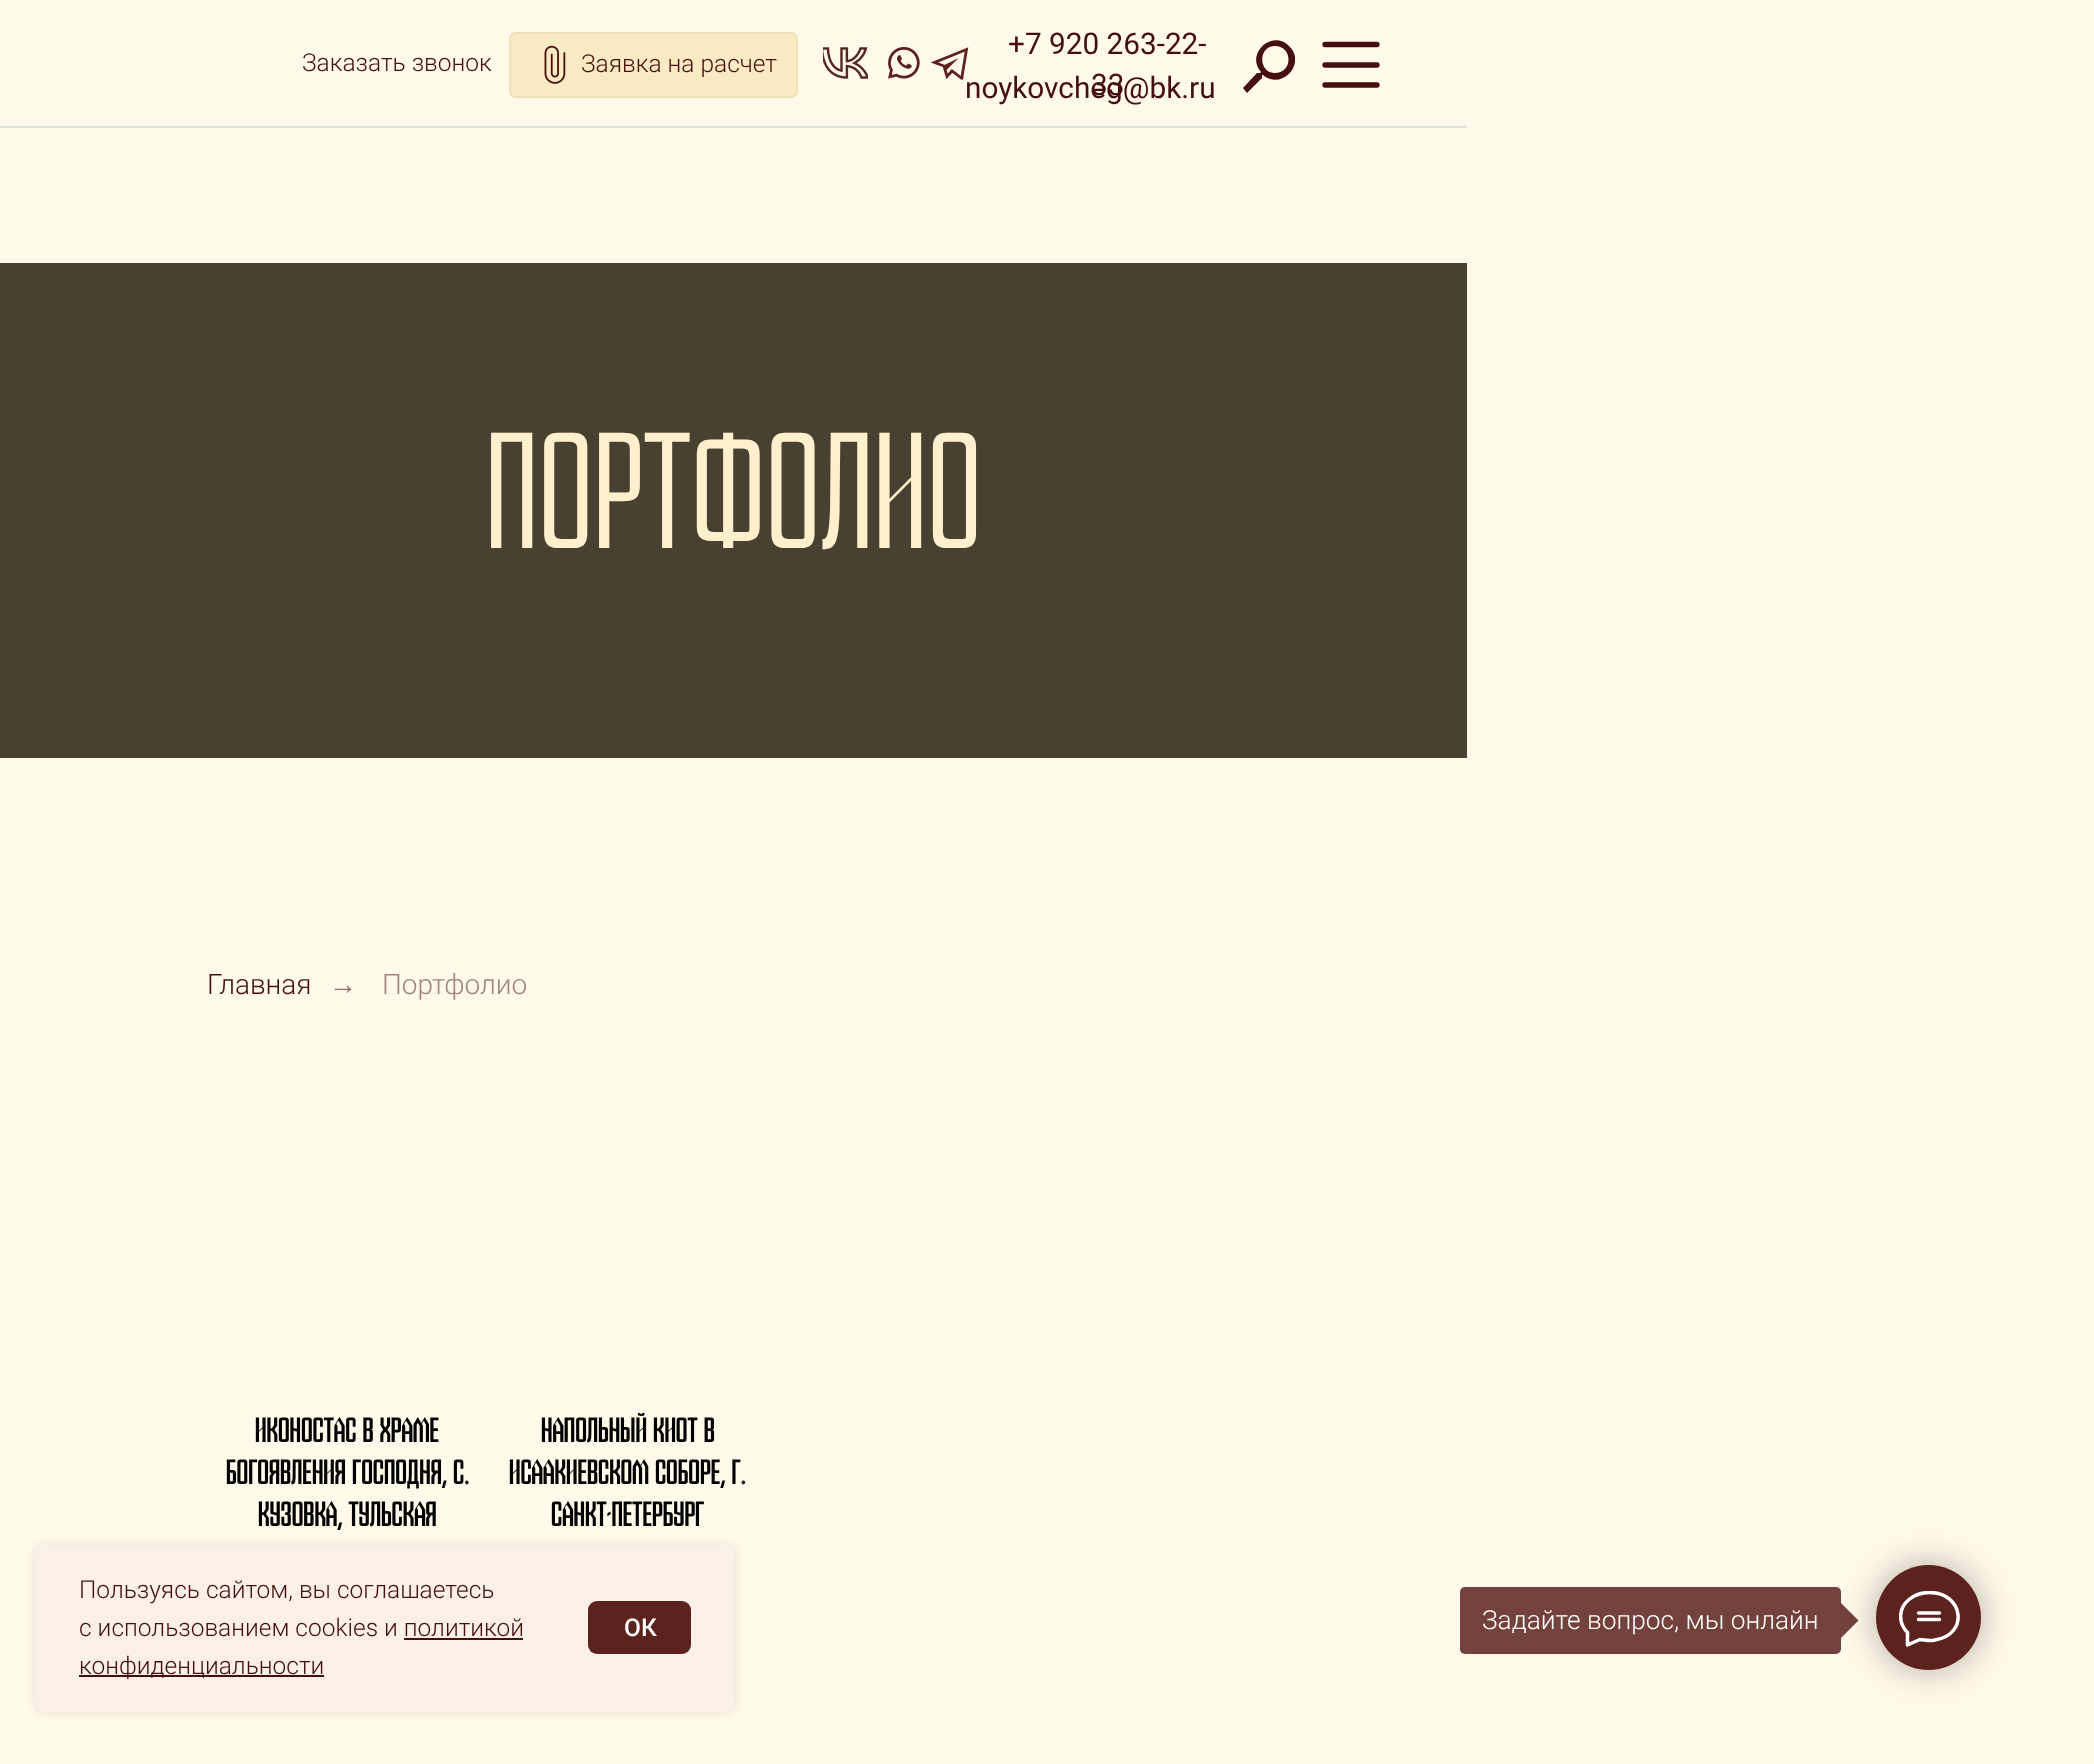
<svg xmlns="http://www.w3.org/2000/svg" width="2094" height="1764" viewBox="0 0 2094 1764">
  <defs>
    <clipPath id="clip1"><rect x="1243" y="40" width="52" height="53"/></clipPath>
    <clipPath id="clip2"><rect x="1899" y="1591" width="61" height="56"/></clipPath>
  </defs>
  <rect width="100%" height="100%" fill="rgb(255,249,234)"/>
  <rect x="510" y="33" width="287" height="64" rx="6" fill="rgb(250,234,195)" stroke="rgb(240,224,183)" stroke-width="2"/>
  <g font-family="Roboto" font-size="29.75" fill="rgb(69,16,12)">
    <text x="1008" y="54">+7 920 263-22-</text>
    <text x="1091" y="95">33</text>
  </g>
  <g clip-path="url(#clip1)">
    <path d="M1257 73H1260L1261 72C1245 54 1272 29 1289 46C1307 63 1282 91 1263 75H1262V78L1247 93L1243 88ZM1275 73C1293 73 1293 46 1275 46C1258 46 1258 73 1275 73Z" fill="rgb(69,16,12)"/>
  </g>
  <path d="M1325 44.5H1377M1325 65H1377M1325 85H1377" fill="none" stroke="rgb(69,16,12)" stroke-width="5.3" stroke-linecap="round" stroke-linejoin="round"/>
  <text x="302" y="71" font-family="Roboto" font-size="24.5" font-weight="300" fill="rgb(69,16,12)">Заказать звонок</text>
  <image x="544" y="45" width="22" height="39" href="pic1.png"/>
  <text x="581" y="72" font-family="Roboto" font-size="24.5" font-weight="300" fill="rgb(69,16,12)">Заявка на расчет</text>
  <image x="823" y="47" width="45" height="32" href="pic2.png"/>
  <image x="888" y="46" width="32" height="33" href="pic3.png"/>
  <path d="M945.5 71L958.5 58L943.5 65.5Z" fill="rgb(92,34,29)"/>
  <text x="965" y="98" font-family="Roboto" font-size="29.75" fill="rgb(69,16,12)">noykovcheg@bk.ru</text>
  <path d="M966.5 49.5L934.5 62.5L944 66L947 76.5L952 71L960 77C963 79.5 961.5 79 962.5 73.5Z" fill="none" stroke="rgb(92,34,29)" stroke-width="2.8"/>
  <rect x="0" y="126" width="1467" height="2" fill="rgb(226,226,226)"/>
  <rect x="0" y="263" width="1467" height="495" fill="rgb(72,65,50)"/>
  <text x="485" y="548" font-family="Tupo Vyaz" font-size="164.5" fill="rgb(255,239,204)">ПОРТФОЛИО</text>
  <text x="207" y="994" font-family="Roboto" font-size="28" font-weight="300" fill="rgb(69,16,12)">Главная</text>
  <text x="329" y="994" font-family="Liberation Serif" font-size="28" fill="rgb(144,109,106)">→</text>
  <text x="382" y="994" font-family="Roboto" font-size="28" font-weight="300" fill="rgb(162,133,123)">Портфолио</text>
  <g font-family="Tupo Vyaz" font-size="35" font-weight="600" fill="rgb(0,0,0)">
    <text x="255" y="1442">Иконостас в Храме</text>
    <text x="226" y="1484">Богоявления Господня, с.</text>
    <text x="258" y="1526">Кузовка, Тульская</text>
    <text x="541" y="1442">Напольный киот в</text>
    <text x="509" y="1484">Исаакиевском Соборе, г.</text>
    <text x="551" y="1526">Санкт-Петербург</text>
  </g>
  <rect x="35" y="1545" width="700" height="167" rx="9" fill="rgba(0,0,0,0.1)" filter="blur(4.5px)"/>
  <rect x="35" y="1545" width="700" height="167" rx="9" fill="rgb(250,240,231)"/>
  <g font-family="Roboto" font-size="24.5" font-weight="300" fill="rgb(69,16,12)">
    <text>
      <tspan x="79" y="1598">Пользуясь сайтом, вы соглашаетесь</tspan>
      <tspan x="79" y="1636">с использованием cookies и политикой</tspan>
    </text>
  </g>
  <rect x="79" y="1675" width="245" height="2" fill="rgb(69,16,12)"/>
  <text x="79" y="1674" font-family="Roboto" font-size="24.5" font-weight="300" fill="rgb(69,16,12)">конфиденциальности</text>
  <rect x="404" y="1638" width="119" height="2" fill="rgb(69,16,12)"/>
  <rect x="588" y="1601" width="103" height="53" rx="9" fill="rgb(92,34,29)"/>
  <text x="624" y="1636" font-family="Roboto" font-size="24.5" font-weight="500" fill="rgb(255,255,255)">ОК</text>
  <rect x="1460" y="1587" width="381" height="67" rx="5" fill="rgb(116,66,60)"/>
  <text x="1482" y="1629" font-family="Roboto" font-size="26.25" font-weight="300" fill="rgb(255,255,255)">Задайте вопрос, мы онлайн</text>
  <path d="M1841 1638V1603L1858.5 1620.5Z" fill="rgb(116,66,60)"/>
  <rect x="1876" y="1565" width="105" height="105" rx="52.5" fill="rgba(0,0,0,0.3)" filter="blur(17.5px)"/>
  <circle cx="1928.5" cy="1617.5" r="52.5" fill="rgb(92,34,29)"/>
  <g clip-path="url(#clip2)">
    <path d="M1918.5 1613H1939.5M1918.5 1619.5H1939.5M1907 1632C1898 1622.5 1898.5 1608 1909 1599.5C1914.5 1595 1922 1592.5 1929.5 1592.5C1963.5 1592.5 1969.5 1634.5 1935 1640C1929 1641.5 1925.5 1640 1920 1639.5L1907.5 1645V1632.5Z" fill="none" stroke="rgb(255,255,255)" stroke-width="3.5" stroke-linecap="round" stroke-linejoin="round"/>
  </g>
</svg>
